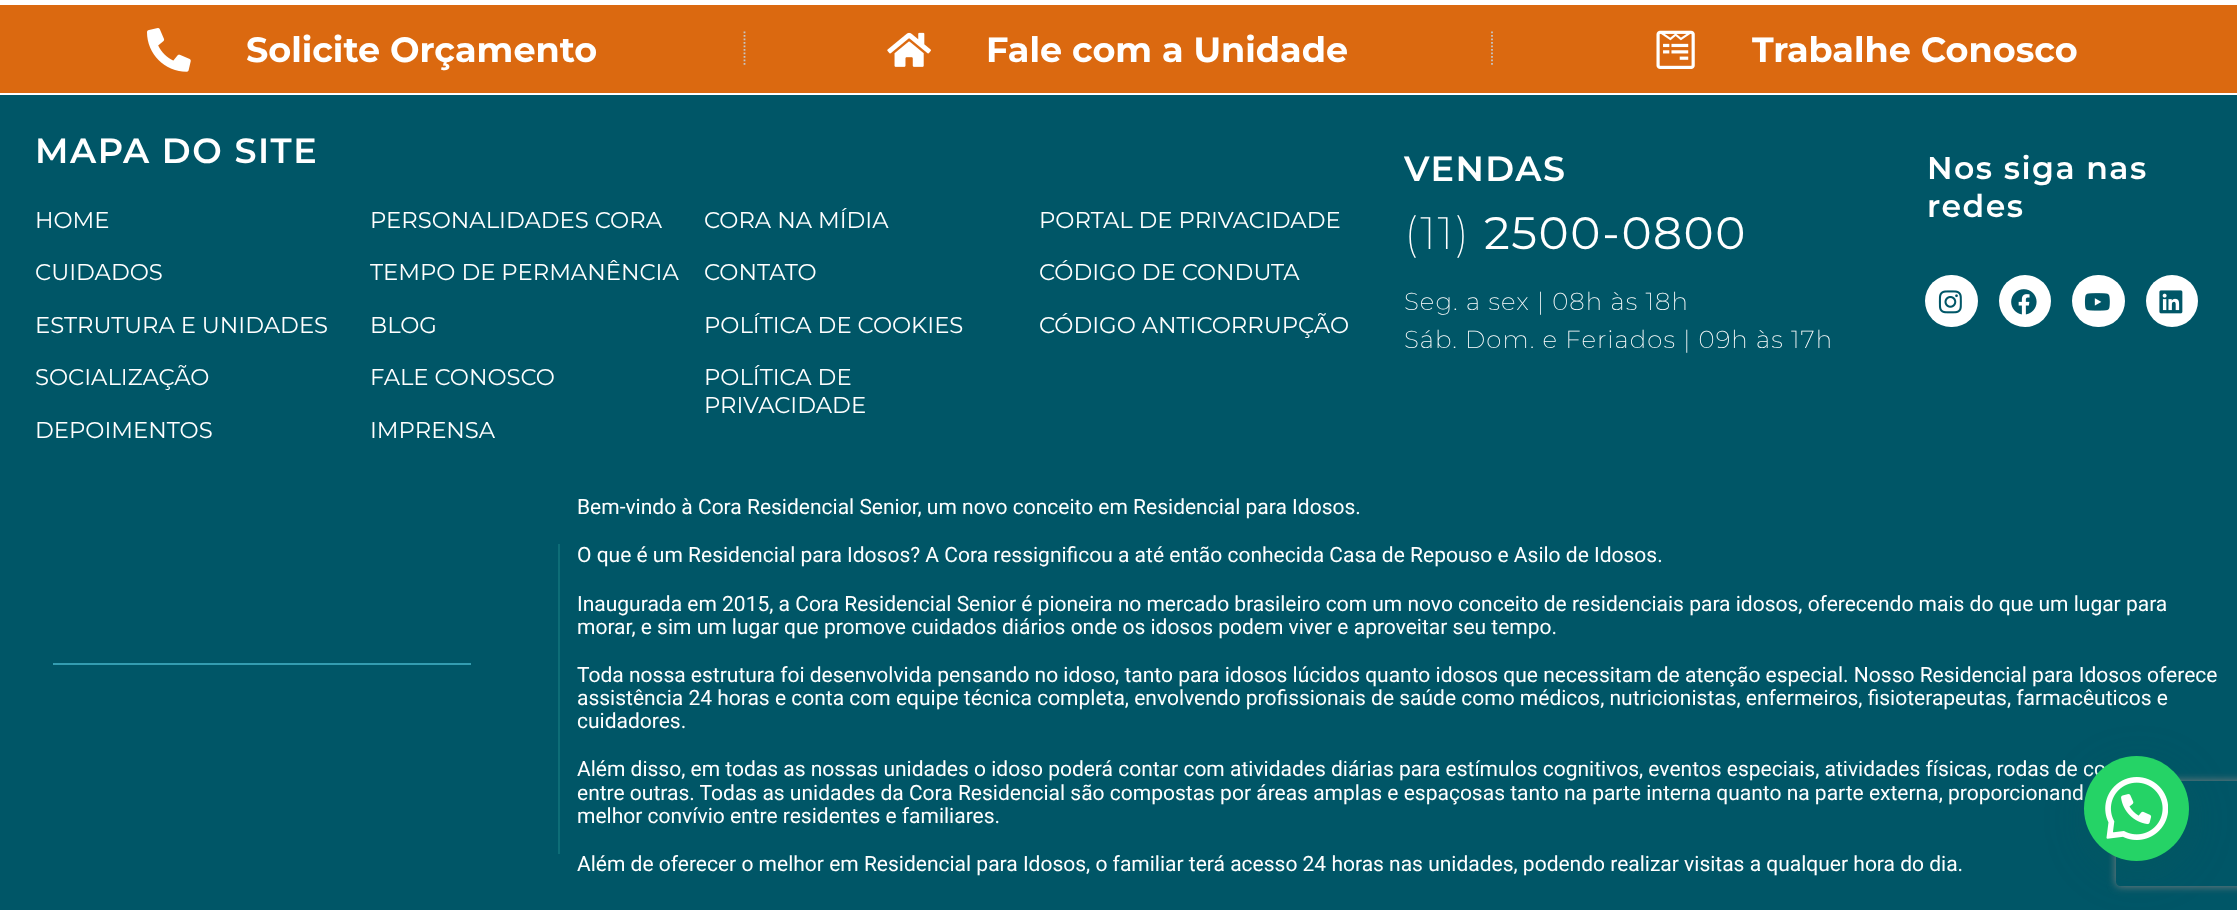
<svg xmlns="http://www.w3.org/2000/svg" width="2237" height="910" viewBox="0 0 2237 910">
  <defs>
    <clipPath id="clip1"><path d="M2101 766H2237V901H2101ZM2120 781H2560C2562 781 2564 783 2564 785V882C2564 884 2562 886 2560 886H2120C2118 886 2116 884 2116 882V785C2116 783 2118 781 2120 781Z" clip-rule="evenodd"/></clipPath>
  </defs>
  <rect width="100%" height="100%" fill="rgb(255,255,255)"/>
  <rect x="0" y="5" width="2237" height="88" fill="rgb(219,105,16)"/>
  <path d="M744.5 31.5V66.5" fill="none" stroke="rgb(198,198,198)" stroke-width="1.8" stroke-dasharray="1.75 1.75"/>
  <image x="147" y="28" width="44" height="44" href="pic1.png"/>
  <text x="246" y="62" font-family="Montserrat" font-size="35" font-weight="bold" fill="rgb(255,255,255)">Solicite Orçamento</text>
  <path d="M1492 31.5V66.5" fill="none" stroke="rgb(198,198,198)" stroke-width="1.8" stroke-dasharray="1.75 1.75"/>
  <image x="887" y="32" width="44" height="35" href="pic2.png"/>
  <text x="986" y="62" font-family="Montserrat" font-size="35" font-weight="bold" fill="rgb(255,255,255)">Fale com a Unidade</text>
  <image x="1656" y="30" width="39" height="39" href="pic3.png"/>
  <text x="1752" y="62" font-family="Montserrat" font-size="35" font-weight="bold" fill="rgb(255,255,255)">Trabalhe Conosco</text>
  <rect x="0" y="95" width="2237" height="815" fill="rgb(0,86,103)"/>
  <text x="35" y="163" font-family="Montserrat" font-size="35" font-weight="600" letter-spacing="1.5" fill="rgb(255,255,255)">MAPA DO SITE</text>
  <g font-family="Montserrat" font-size="22.75" fill="rgb(255,255,255)">
    <text x="35" y="228">HOME</text>
    <text x="370" y="228">PERSONALIDADES CORA</text>
    <text x="704" y="228">CORA NA MÍDIA</text>
    <text x="1039" y="228">PORTAL DE PRIVACIDADE</text>
    <text x="35" y="280">CUIDADOS</text>
    <text x="370" y="280">TEMPO DE PERMANÊNCIA</text>
    <text x="704" y="280">CONTATO</text>
    <text x="1039" y="280">CÓDIGO DE CONDUTA</text>
    <text x="35" y="333">ESTRUTURA E UNIDADES</text>
    <text x="370" y="333">BLOG</text>
    <text x="704" y="333">POLÍTICA DE COOKIES</text>
    <text x="1039" y="333">CÓDIGO ANTICORRUPÇÃO</text>
    <text x="35" y="385">SOCIALIZAÇÃO</text>
    <text x="370" y="385">FALE CONOSCO</text>
    <text>
      <tspan x="704" y="385">POLÍTICA DE</tspan>
      <tspan x="704" y="413">PRIVACIDADE</tspan>
    </text>
    <text x="35" y="438">DEPOIMENTOS</text>
    <text x="370" y="438">IMPRENSA</text>
  </g>
  <text x="1404" y="181" font-family="Montserrat" font-size="35" font-weight="600" letter-spacing="1.5" fill="rgb(255,255,255)">VENDAS</text>
  <text x="1404" y="249" font-family="Montserrat" font-size="45.5" font-weight="200" letter-spacing="1.5" fill="rgb(255,255,255)">(11)</text>
  <text x="1484" y="249" font-family="Montserrat" font-size="45.5" letter-spacing="1.5" fill="rgb(255,255,255)">2500-0800</text>
  <g font-family="Montserrat" font-size="24.5" font-weight="200" letter-spacing="1.05" fill="rgb(255,255,255)">
    <text>
      <tspan x="1404" y="310">Seg. a sex | 08h às 18h</tspan>
      <tspan x="1404" y="348">Sáb. Dom. e Feriados | 09h às 17h</tspan>
    </text>
  </g>
  <g font-family="Montserrat" font-size="31.5" font-weight="600" letter-spacing="1.5" fill="rgb(255,255,255)">
    <text>
      <tspan x="1927" y="179">Nos siga nas</tspan>
      <tspan x="1927" y="217">redes</tspan>
    </text>
  </g>
  <rect x="1925" y="275" width="53" height="52" rx="26" fill="rgb(255,255,255)"/>
  <image x="1938" y="290" width="24" height="24" href="pic4.png"/>
  <circle cx="2025" cy="301" r="26" fill="rgb(255,255,255)"/>
  <image x="2011" y="289" width="26" height="26" href="pic5.png"/>
  <rect x="2072" y="275" width="53" height="52" rx="26" fill="rgb(255,255,255)"/>
  <image x="2084" y="293" width="26" height="18" href="pic6.png"/>
  <circle cx="2172" cy="301" r="26" fill="rgb(255,255,255)"/>
  <image x="2159" y="290" width="24" height="24" href="pic7.png"/>
  <rect x="558" y="544" width="2" height="310" fill="rgb(13,109,119)"/>
  <rect x="53" y="663" width="418" height="2" fill="rgb(52,157,177)"/>
  <g font-family="Roboto" font-size="21" fill="rgb(255,255,255)">
    <text x="577" y="514">Bem-vindo à Cora Residencial Senior, um novo conceito em Residencial para Idosos.</text>
    <text x="577" y="562">O que é um Residencial para Idosos? A Cora ressignificou a até então conhecida Casa de Repouso e Asilo de Idosos.</text>
    <text>
      <tspan x="577" y="611">Inaugurada em 2015, a Cora Residencial Senior é pioneira no mercado brasileiro com um novo conceito de residenciais para idosos, oferecendo mais do que um lugar para</tspan>
      <tspan x="577" y="634">morar, e sim um lugar que promove cuidados diários onde os idosos podem viver e aproveitar seu tempo.</tspan>
    </text>
    <text>
      <tspan x="577" y="682">Toda nossa estrutura foi desenvolvida pensando no idoso, tanto para idosos lúcidos quanto idosos que necessitam de atenção especial. Nosso Residencial para Idosos oferece</tspan>
      <tspan x="577" y="705">assistência 24 horas e conta com equipe técnica completa, envolvendo profissionais de saúde como médicos, nutricionistas, enfermeiros, fisioterapeutas, farmacêuticos e</tspan>
      <tspan x="577" y="728">cuidadores.</tspan>
    </text>
    <text>
      <tspan x="577" y="776">Além disso, em todas as nossas unidades o idoso poderá contar com atividades diárias para estímulos cognitivos, eventos especiais, atividades físicas, rodas de co</tspan>
      <tspan x="577" y="800">entre outras. Todas as unidades da Cora Residencial são compostas por áreas amplas e espaçosas tanto na parte interna quanto na parte externa, proporcionand</tspan>
      <tspan x="577" y="823">melhor convívio entre residentes e familiares.</tspan>
    </text>
    <text x="577" y="871">Além de oferecer o melhor em Residencial para Idosos, o familiar terá acesso 24 horas nas unidades, podendo realizar visitas a qualquer hora do dia.</text>
  </g>
  <rect x="2086" y="767" width="105" height="105" rx="52.5" fill="rgba(7,94,84,0.24)" filter="blur(21px)"/>
  <g clip-path="url(#clip1)">
    <rect x="2116" y="781" width="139" height="105" rx="4" fill="rgb(128,128,128)" filter="blur(4.5px)"/>
  </g>
  <circle cx="2136.5" cy="808.5" r="52.5" fill="rgb(37,211,102)"/>
  <image x="2105" y="777" width="63" height="63" href="pic8.png"/>
</svg>
